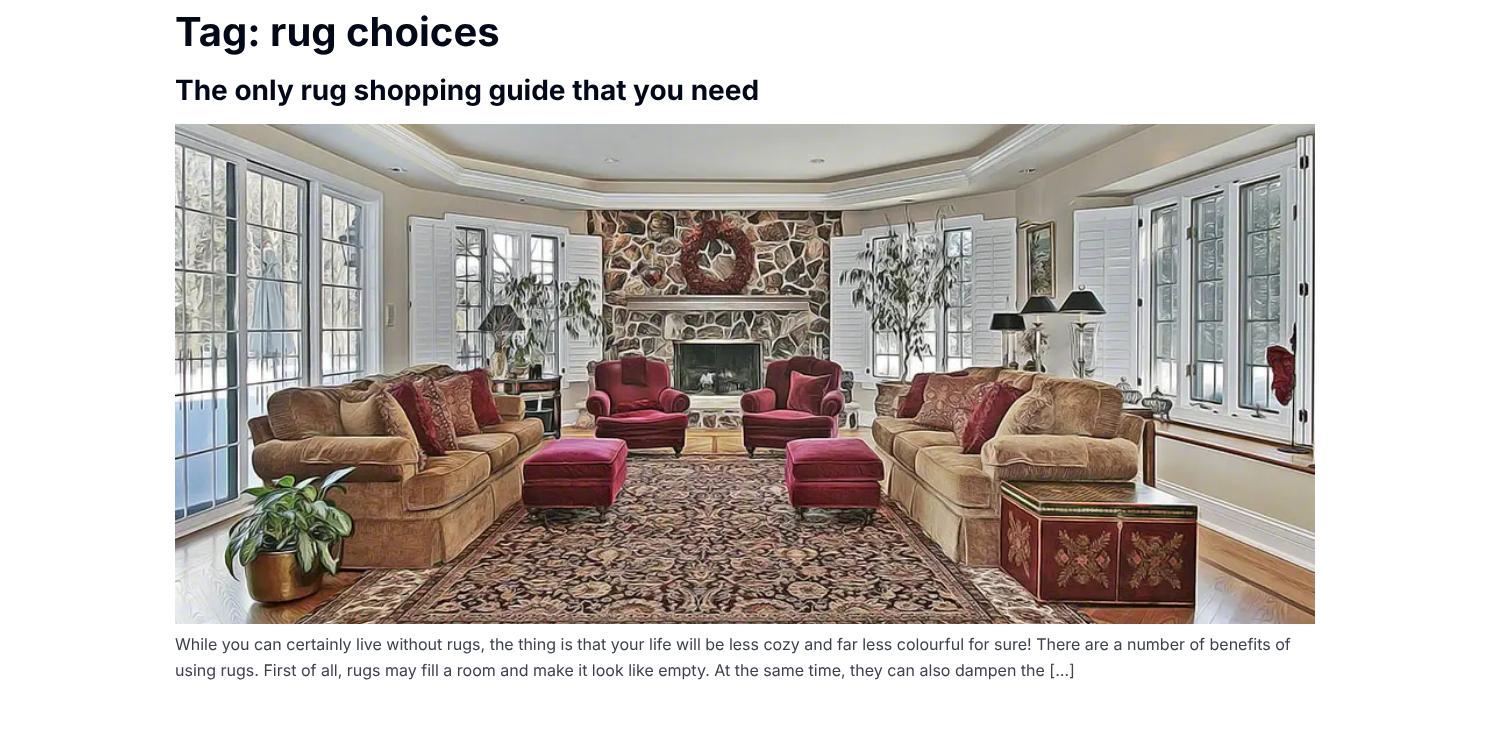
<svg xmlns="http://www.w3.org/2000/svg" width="1489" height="734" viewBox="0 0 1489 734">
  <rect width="100%" height="100%" fill="rgb(255,255,255)"/>
  <text x="175" y="46" font-family="Inter" font-size="40" font-weight="bold" fill="rgb(2,8,23)">Tag: rug choices</text>
  <text x="175" y="100" font-family="Inter" font-size="28" font-weight="bold" fill="rgb(2,8,23)">The only rug shopping guide that you need</text>
  <image x="175" y="124" width="1140" height="500" href="pic1.png"/>
  <g font-family="Inter" font-size="16" fill="rgb(60,65,76)">
    <text>
      <tspan x="175" y="650">While you can certainly live without rugs, the thing is that your life will be less cozy and far less colourful for sure! There are a number of benefits of</tspan>
      <tspan x="175" y="676">using rugs. First of all, rugs may fill a room and make it look like empty. At the same time, they can also dampen the […]</tspan>
    </text>
  </g>
</svg>
